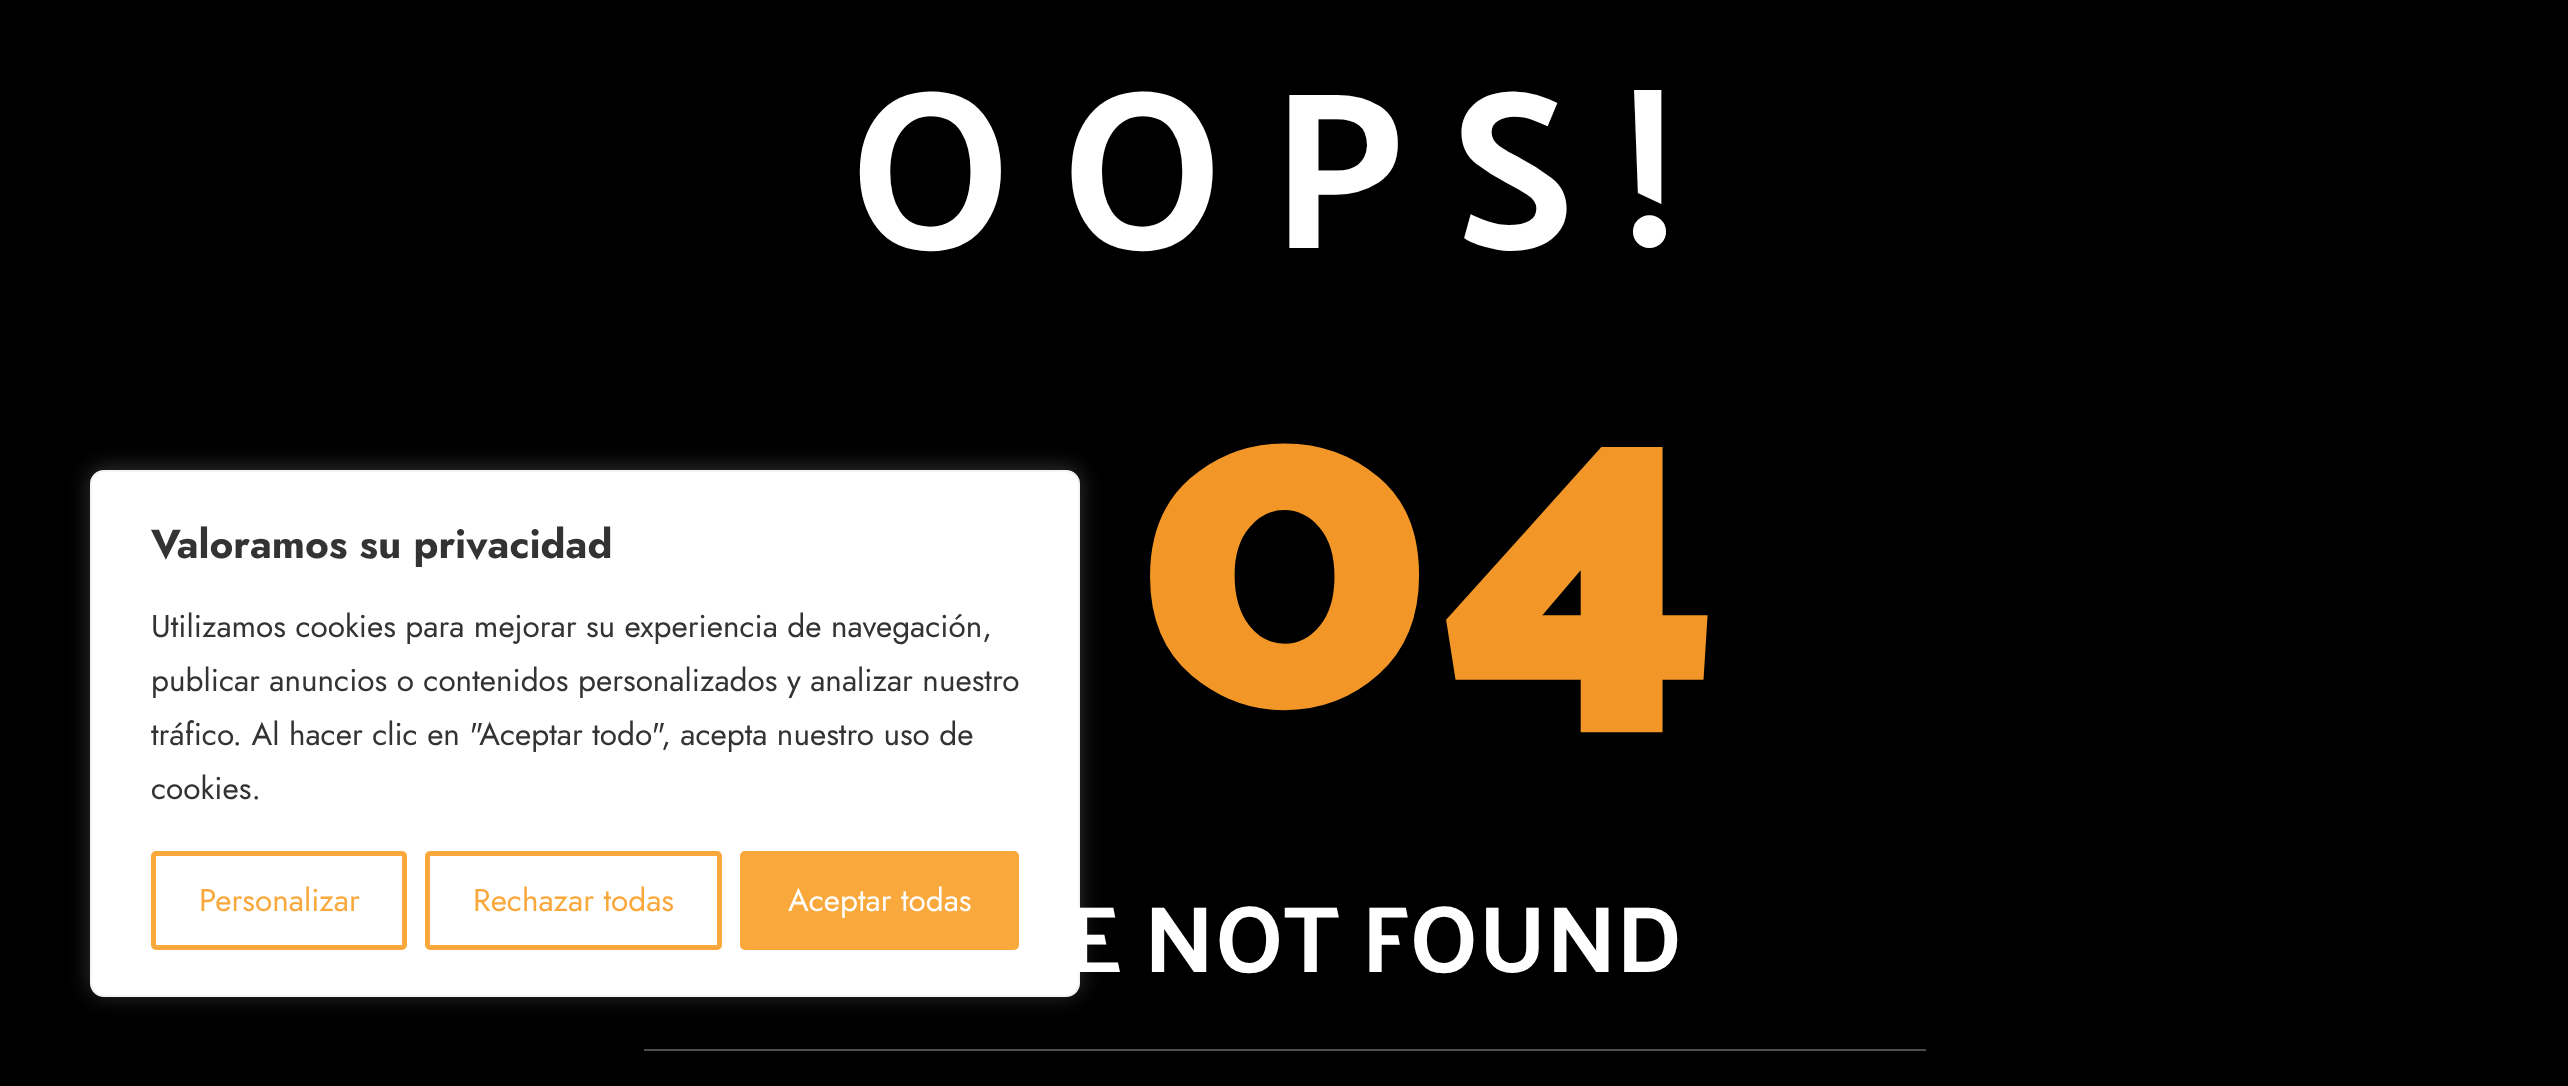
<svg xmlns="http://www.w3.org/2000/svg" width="2568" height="1086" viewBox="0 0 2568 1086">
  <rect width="100%" height="100%" fill="rgb(0,0,0)"/>
  <rect x="90" y="468" width="990" height="527" rx="14" fill="rgba(172,171,171,0.3)" filter="blur(11px)"/>
  <rect x="91" y="471" width="988" height="525" rx="13" fill="rgb(255,255,255)" stroke="rgb(244,244,244)" stroke-width="2"/>
  <text x="151" y="558" font-family="Jost" font-size="40.5" font-weight="bold" fill="rgb(51,51,51)">Valoramos su privacidad</text>
  <g font-family="Jost" font-size="31.5" fill="rgb(51,51,51)">
    <text>
      <tspan x="151" y="637">Utilizamos cookies para mejorar su experiencia de navegación,</tspan>
      <tspan x="151" y="691">publicar anuncios o contenidos personalizados y analizar nuestro</tspan>
      <tspan x="151" y="745">tráfico. Al hacer clic en "Aceptar todo", acepta nuestro uso de</tspan>
      <tspan x="151" y="799">cookies.</tspan>
    </text>
  </g>
  <rect x="153.5" y="853.5" width="251" height="94" rx="2.5" fill="none" stroke="rgb(249,168,60)" stroke-width="5"/>
  <text x="199" y="911" font-family="Jost" font-size="31.5" fill="rgb(249,168,60)">Personalizar</text>
  <rect x="427.5" y="853.5" width="292" height="94" rx="2.5" fill="none" stroke="rgb(249,168,60)" stroke-width="5"/>
  <text x="473" y="911" font-family="Jost" font-size="31.5" fill="rgb(249,168,60)">Rechazar todas</text>
  <rect x="742.5" y="853.5" width="274" height="94" rx="2.5" fill="rgb(249,168,60)" stroke="rgb(249,168,60)" stroke-width="5"/>
  <text x="788" y="911" font-family="Jost" font-size="31.5" fill="rgb(255,255,255)">Aceptar todas</text>
  <text x="847" y="248" font-family="Palanquin Dark" font-size="225" letter-spacing="45" fill="rgb(255,255,255)">OOPS!</text>
  <text x="1132" y="704" font-family="Palanquin Dark" font-size="450" font-weight="bold" fill="rgb(242,151,39)">04</text>
  <rect x="644" y="1049" width="1282" height="2" fill="rgb(77,77,77)"/>
  <text x="1067" y="972" font-family="Palanquin Dark" font-size="94.5" fill="rgb(255,255,255)">E NOT FOUND</text>
</svg>
